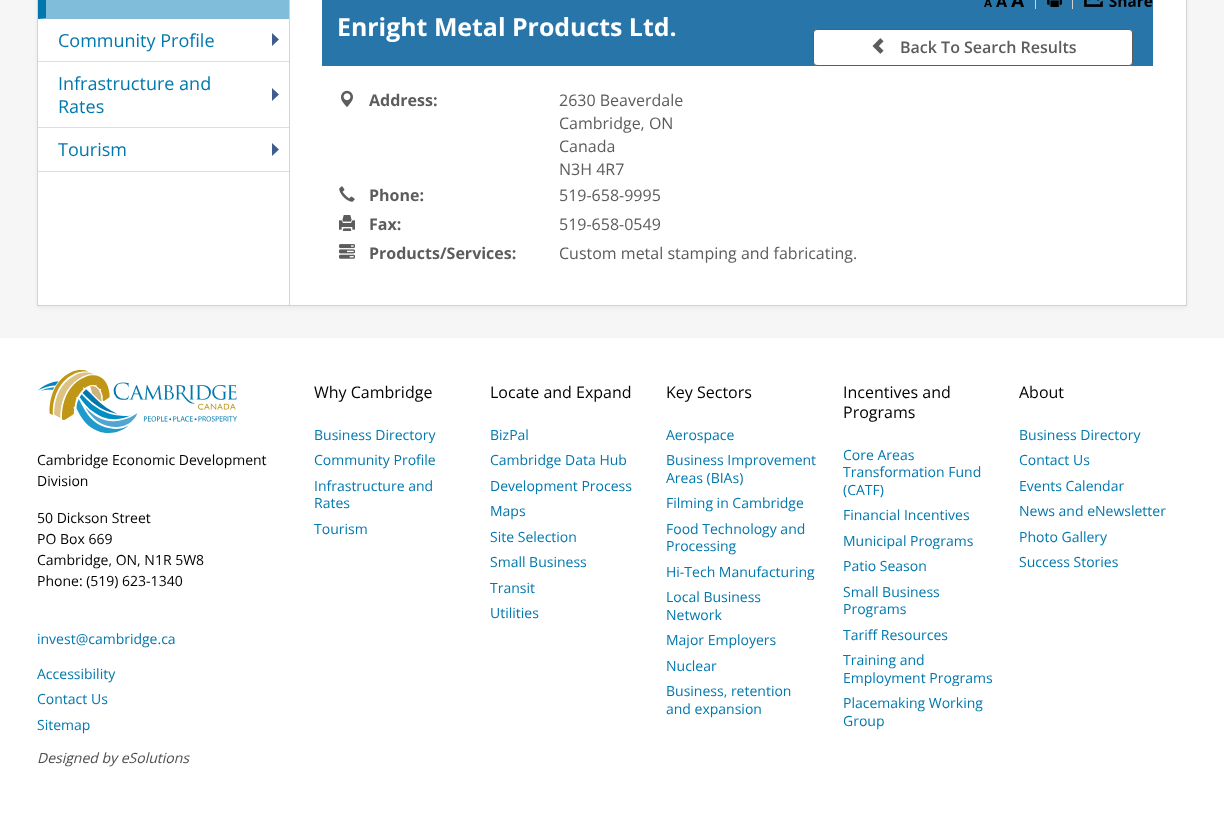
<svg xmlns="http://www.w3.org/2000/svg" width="1224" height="823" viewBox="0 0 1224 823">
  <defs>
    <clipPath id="clip1"><rect x="314" y="426" width="152" height="17"/></clipPath>
    <clipPath id="clip2"><rect x="666" y="563" width="153" height="17"/></clipPath>
    <clipPath id="clip3"><rect x="843" y="532" width="152" height="17"/></clipPath>
    <clipPath id="clip4"><rect x="843" y="651" width="152" height="35"/></clipPath>
    <clipPath id="clip5"><rect x="1019" y="426" width="152" height="17"/></clipPath>
  </defs>
  <rect width="100%" height="100%" fill="rgb(246,246,246)"/>
  <rect x="37" y="-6" width="1150" height="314" fill="rgba(0,0,0,0.05)" filter="blur(2px)"/>
  <rect x="37.5" y="-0.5" width="1149" height="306" fill="rgb(255,255,255)" stroke="rgb(211,211,211)"/>
  <rect x="38" y="0" width="251" height="19" fill="rgb(127,189,218)"/>
  <path d="M38 19V-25H46V18Z" fill="rgb(0,120,174)"/>
  <path d="M272 46L279 39.5L272 33Z" fill="rgb(62,93,142)"/>
  <rect x="38" y="61" width="251" height="1" fill="rgb(221,221,221)"/>
  <text x="58" y="47" font-family="Open Sans" font-size="18" fill="rgb(0,120,174)">Community Profile</text>
  <path d="M272 101L279 94.5L272 88Z" fill="rgb(62,93,142)"/>
  <rect x="38" y="127" width="251" height="1" fill="rgb(221,221,221)"/>
  <g font-family="Open Sans" font-size="18" fill="rgb(0,120,174)">
    <text>
      <tspan x="58" y="90">Infrastructure and</tspan>
      <tspan x="58" y="113">Rates</tspan>
    </text>
  </g>
  <path d="M272 156L279 149.5L272 143Z" fill="rgb(62,93,142)"/>
  <rect x="38" y="171" width="251" height="1" fill="rgb(221,221,221)"/>
  <text x="58" y="156" font-family="Open Sans" font-size="18" fill="rgb(0,120,174)">Tourism</text>
  <rect x="289" y="0" width="1" height="305" fill="rgb(211,211,211)"/>
  <rect x="322" y="0" width="831" height="66" fill="rgb(40,117,169)"/>
  <image x="984" y="0" width="8" height="7" href="pic1.png"/>
  <image x="996" y="0" width="11" height="7" href="pic2.png"/>
  <image x="1011" y="0" width="13" height="7" href="pic3.png"/>
  <rect x="1035" y="0" width="1" height="9" fill="rgb(211,211,211)"/>
  <image x="1047" y="0" width="15" height="7" href="pic4.png"/>
  <rect x="1072" y="0" width="1" height="9" fill="rgb(211,211,211)"/>
  <image x="1084" y="0" width="69" height="7" href="pic5.png"/>
  <text x="337" y="36" font-family="Open Sans" font-size="24.9" font-weight="bold" fill="rgb(255,255,255)">Enright Metal Products Ltd.</text>
  <rect x="813.5" y="29.5" width="319" height="36" rx="3.5" fill="rgb(255,255,255)" stroke="rgb(92,92,92)"/>
  <image x="872" y="38" width="12" height="16" href="pic6.png"/>
  <text x="900" y="53" font-family="Open Sans" font-size="16" font-weight="600" fill="rgb(92,92,92)">Back To Search Results</text>
  <image x="341" y="90" width="12" height="17" href="pic7.png"/>
  <text x="369" y="106" font-family="Open Sans" font-size="16" font-weight="bold" fill="rgb(92,92,92)">Address:</text>
  <g font-family="Open Sans" font-size="16" fill="rgb(92,92,92)">
    <text>
      <tspan x="559" y="106">2630 Beaverdale</tspan>
      <tspan x="559" y="129">Cambridge, ON</tspan>
      <tspan x="559" y="152">Canada</tspan>
      <tspan x="559" y="175">N3H 4R7</tspan>
    </text>
  </g>
  <image x="339" y="186" width="16" height="16" href="pic8.png"/>
  <text x="369" y="201" font-family="Open Sans" font-size="16" font-weight="bold" fill="rgb(92,92,92)">Phone:</text>
  <text x="559" y="201" font-family="Open Sans" font-size="16" fill="rgb(92,92,92)">519-658-9995</text>
  <image x="339" y="215" width="16" height="16" href="pic9.png"/>
  <text x="369" y="230" font-family="Open Sans" font-size="16" font-weight="bold" fill="rgb(92,92,92)">Fax:</text>
  <text x="559" y="230" font-family="Open Sans" font-size="16" fill="rgb(92,92,92)">519-658-0549</text>
  <image x="339" y="244" width="16" height="15" href="pic10.png"/>
  <text x="369" y="259" font-family="Open Sans" font-size="16" font-weight="bold" fill="rgb(92,92,92)">Products/Services:</text>
  <text x="559" y="259" font-family="Open Sans" font-size="16" fill="rgb(92,92,92)">Custom metal stamping and fabricating.</text>
  <rect x="0" y="338" width="1224" height="485" fill="rgb(255,255,255)"/>
  <image x="37" y="370" width="200" height="63" href="pic11.png"/>
  <g font-family="Open Sans" font-size="14" fill="rgb(0,0,0)">
    <text>
      <tspan x="37" y="465">Cambridge Economic Development</tspan>
      <tspan x="37" y="486">Division</tspan>
    </text>
    <text>
      <tspan x="37" y="523">50 Dickson Street</tspan>
      <tspan x="37" y="544">PO Box 669</tspan>
      <tspan x="37" y="565">Cambridge, ON, N1R 5W8</tspan>
      <tspan x="37" y="586">Phone: (519) 623-1340</tspan>
    </text>
  </g>
  <g font-family="Open Sans" font-size="14" fill="rgb(0,120,174)">
    <text x="37" y="644">invest@cambridge.ca</text>
    <text>
      <tspan x="37" y="679">Accessibility</tspan>
      <tspan x="37" y="704">Contact Us</tspan>
      <tspan x="37" y="730">Sitemap</tspan>
    </text>
  </g>
  <text x="37" y="763" font-family="Open Sans" font-size="14" font-style="italic" fill="rgb(77,77,77)">Designed by eSolutions</text>
  <text x="314" y="398" font-family="Open Sans" font-size="16" fill="rgb(0,0,0)">Why Cambridge</text>
  <g clip-path="url(#clip1)">
    <text x="314" y="440" font-family="Open Sans" font-size="14" fill="rgb(0,120,174)">Business Directory</text>
  </g>
  <g font-family="Open Sans" font-size="14" fill="rgb(0,120,174)">
    <text>
      <tspan x="314" y="465">Community Profile</tspan>
      <tspan x="314" y="491">Infrastructure and</tspan>
      <tspan x="314" y="508">Rates</tspan>
      <tspan x="314" y="534">Tourism</tspan>
    </text>
  </g>
  <text x="490" y="398" font-family="Open Sans" font-size="16" fill="rgb(0,0,0)">Locate and Expand</text>
  <g font-family="Open Sans" font-size="14" fill="rgb(0,120,174)">
    <text>
      <tspan x="490" y="440">BizPal</tspan>
      <tspan x="490" y="465">Cambridge Data Hub</tspan>
      <tspan x="490" y="491">Development Process</tspan>
      <tspan x="490" y="516">Maps</tspan>
      <tspan x="490" y="542">Site Selection</tspan>
      <tspan x="490" y="567">Small Business</tspan>
      <tspan x="490" y="593">Transit</tspan>
      <tspan x="490" y="618">Utilities</tspan>
    </text>
  </g>
  <text x="666" y="398" font-family="Open Sans" font-size="16" fill="rgb(0,0,0)">Key Sectors</text>
  <g font-family="Open Sans" font-size="14" fill="rgb(0,120,174)">
    <text>
      <tspan x="666" y="440">Aerospace</tspan>
      <tspan x="666" y="465">Business Improvement</tspan>
      <tspan x="666" y="483">Areas (BIAs)</tspan>
      <tspan x="666" y="508">Filming in Cambridge</tspan>
      <tspan x="666" y="534">Food Technology and</tspan>
      <tspan x="666" y="551">Processing</tspan>
    </text>
  </g>
  <g clip-path="url(#clip2)">
    <text x="666" y="577" font-family="Open Sans" font-size="14" fill="rgb(0,120,174)">Hi-Tech Manufacturing</text>
  </g>
  <g font-family="Open Sans" font-size="14" fill="rgb(0,120,174)">
    <text>
      <tspan x="666" y="602">Local Business</tspan>
      <tspan x="666" y="620">Network</tspan>
      <tspan x="666" y="645">Major Employers</tspan>
      <tspan x="666" y="671">Nuclear</tspan>
      <tspan x="666" y="696">Business, retention</tspan>
      <tspan x="666" y="714">and expansion</tspan>
    </text>
  </g>
  <g font-family="Open Sans" font-size="16" fill="rgb(0,0,0)">
    <text>
      <tspan x="843" y="398">Incentives and</tspan>
      <tspan x="843" y="418">Programs</tspan>
    </text>
  </g>
  <g font-family="Open Sans" font-size="14" fill="rgb(0,120,174)">
    <text>
      <tspan x="843" y="460">Core Areas</tspan>
      <tspan x="843" y="477">Transformation Fund</tspan>
      <tspan x="843" y="495">(CATF)</tspan>
      <tspan x="843" y="520">Financial Incentives</tspan>
    </text>
  </g>
  <g clip-path="url(#clip3)">
    <text x="843" y="546" font-family="Open Sans" font-size="14" fill="rgb(0,120,174)">Municipal Programs</text>
  </g>
  <g font-family="Open Sans" font-size="14" fill="rgb(0,120,174)">
    <text>
      <tspan x="843" y="571">Patio Season</tspan>
      <tspan x="843" y="597">Small Business</tspan>
      <tspan x="843" y="614">Programs</tspan>
      <tspan x="843" y="640">Tariff Resources</tspan>
      <tspan x="843" y="665">Training and</tspan>
    </text>
  </g>
  <g clip-path="url(#clip4)">
    <text x="843" y="683" font-family="Open Sans" font-size="14" fill="rgb(0,120,174)">Employment Programs</text>
  </g>
  <g font-family="Open Sans" font-size="14" fill="rgb(0,120,174)">
    <text>
      <tspan x="843" y="708">Placemaking Working</tspan>
      <tspan x="843" y="726">Group</tspan>
    </text>
  </g>
  <text x="1019" y="398" font-family="Open Sans" font-size="16" fill="rgb(0,0,0)">About</text>
  <g clip-path="url(#clip5)">
    <text x="1019" y="440" font-family="Open Sans" font-size="14" fill="rgb(0,120,174)">Business Directory</text>
  </g>
  <g font-family="Open Sans" font-size="14" fill="rgb(0,120,174)">
    <text>
      <tspan x="1019" y="465">Contact Us</tspan>
      <tspan x="1019" y="491">Events Calendar</tspan>
      <tspan x="1019" y="516">News and eNewsletter</tspan>
      <tspan x="1019" y="542">Photo Gallery</tspan>
      <tspan x="1019" y="567">Success Stories</tspan>
    </text>
  </g>
</svg>
